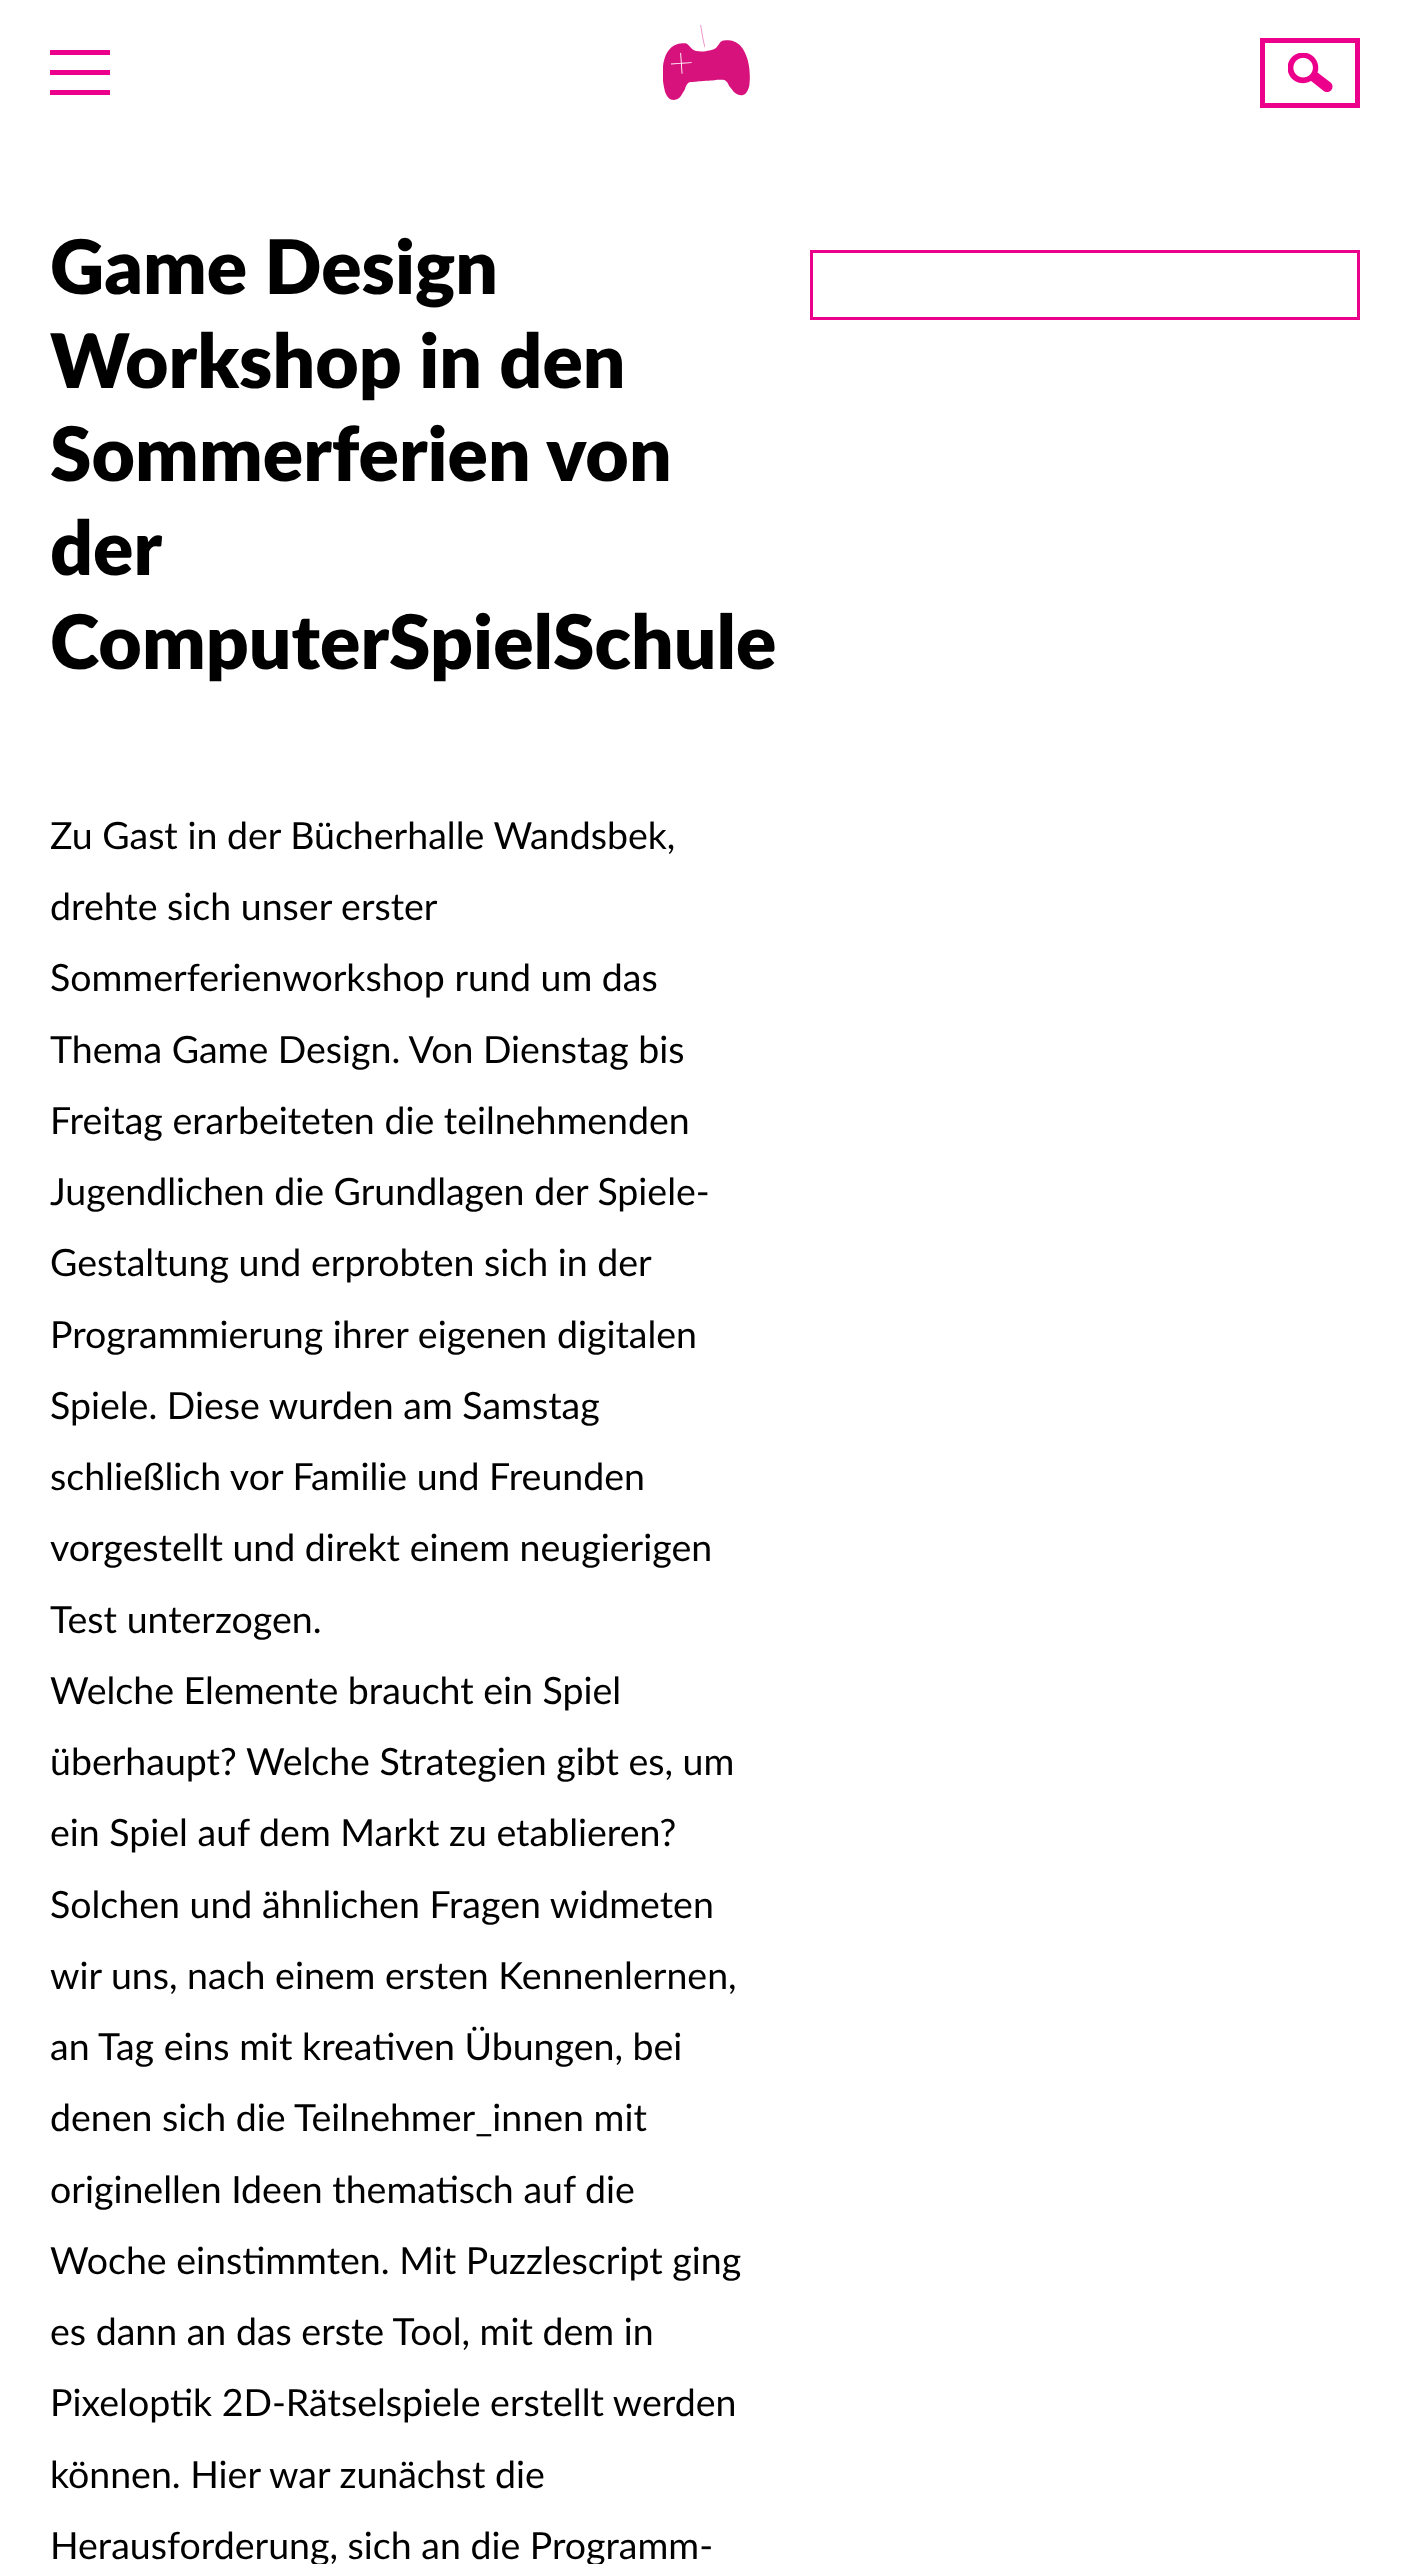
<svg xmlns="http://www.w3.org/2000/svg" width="1410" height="2564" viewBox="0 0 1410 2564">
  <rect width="100%" height="100%" fill="rgb(255,255,255)"/>
  <rect x="50" y="50" width="60" height="5" fill="rgb(236,0,139)"/>
  <rect x="50" y="70" width="60" height="5" fill="rgb(236,0,139)"/>
  <rect x="50" y="90" width="60" height="5" fill="rgb(236,0,139)"/>
  <image x="663" y="25" width="87" height="75" href="pic1.png"/>
  <image x="1288" y="53" width="45" height="40" href="pic2.png"/>
  <rect x="1262.5" y="40.5" width="95" height="65" fill="none" stroke="rgb(236,0,139)" stroke-width="5"/>
  <g font-family="Lato" font-size="75" font-weight="900" fill="rgb(0,0,0)">
    <text>
      <tspan x="50" y="294">Game Design</tspan>
      <tspan x="50" y="388">Workshop in den</tspan>
      <tspan x="50" y="481">Sommerferien von</tspan>
      <tspan x="50" y="575">der</tspan>
      <tspan x="50" y="669">ComputerSpielSchule</tspan>
    </text>
  </g>
  <rect x="811.5" y="251.5" width="547" height="67" fill="none" stroke="rgb(236,0,139)" stroke-width="3"/>
  <g font-family="Lato" font-size="37.5" fill="rgb(0,0,0)">
    <text>
      <tspan x="50" y="849">Zu Gast in der Bücherhalle Wandsbek,</tspan>
      <tspan x="50" y="920">drehte sich unser erster</tspan>
      <tspan x="50" y="991">Sommerferienworkshop rund um das</tspan>
      <tspan x="50" y="1063">Thema Game Design. Von Dienstag bis</tspan>
      <tspan x="50" y="1134">Freitag erarbeiteten die teilnehmenden</tspan>
      <tspan x="50" y="1205">Jugendlichen die Grundlagen der Spiele-</tspan>
      <tspan x="50" y="1276">Gestaltung und erprobten sich in der</tspan>
      <tspan x="50" y="1348">Programmierung ihrer eigenen digitalen</tspan>
      <tspan x="50" y="1419">Spiele. Diese wurden am Samstag</tspan>
      <tspan x="50" y="1490">schließlich vor Familie und Freunden</tspan>
      <tspan x="50" y="1561">vorgestellt und direkt einem neugierigen</tspan>
      <tspan x="50" y="1633">Test unterzogen.</tspan>
      <tspan x="50" y="1704">Welche Elemente braucht ein Spiel</tspan>
      <tspan x="50" y="1775">überhaupt? Welche Strategien gibt es, um</tspan>
      <tspan x="50" y="1846">ein Spiel auf dem Markt zu etablieren?</tspan>
      <tspan x="50" y="1918">Solchen und ähnlichen Fragen widmeten</tspan>
      <tspan x="50" y="1989">wir uns, nach einem ersten Kennenlernen,</tspan>
      <tspan x="50" y="2060">an Tag eins mit kreativen Übungen, bei</tspan>
      <tspan x="50" y="2131">denen sich die Teilnehmer_innen mit</tspan>
      <tspan x="50" y="2203">originellen Ideen thematisch auf die</tspan>
      <tspan x="50" y="2274">Woche einstimmten. Mit Puzzlescript ging</tspan>
      <tspan x="50" y="2345">es dann an das erste Tool, mit dem in</tspan>
      <tspan x="50" y="2416">Pixeloptik 2D-Rätselspiele erstellt werden</tspan>
      <tspan x="50" y="2488">können. Hier war zunächst die</tspan>
      <tspan x="50" y="2559">Herausforderung, sich an die Programm-</tspan>
    </text>
  </g>
</svg>
